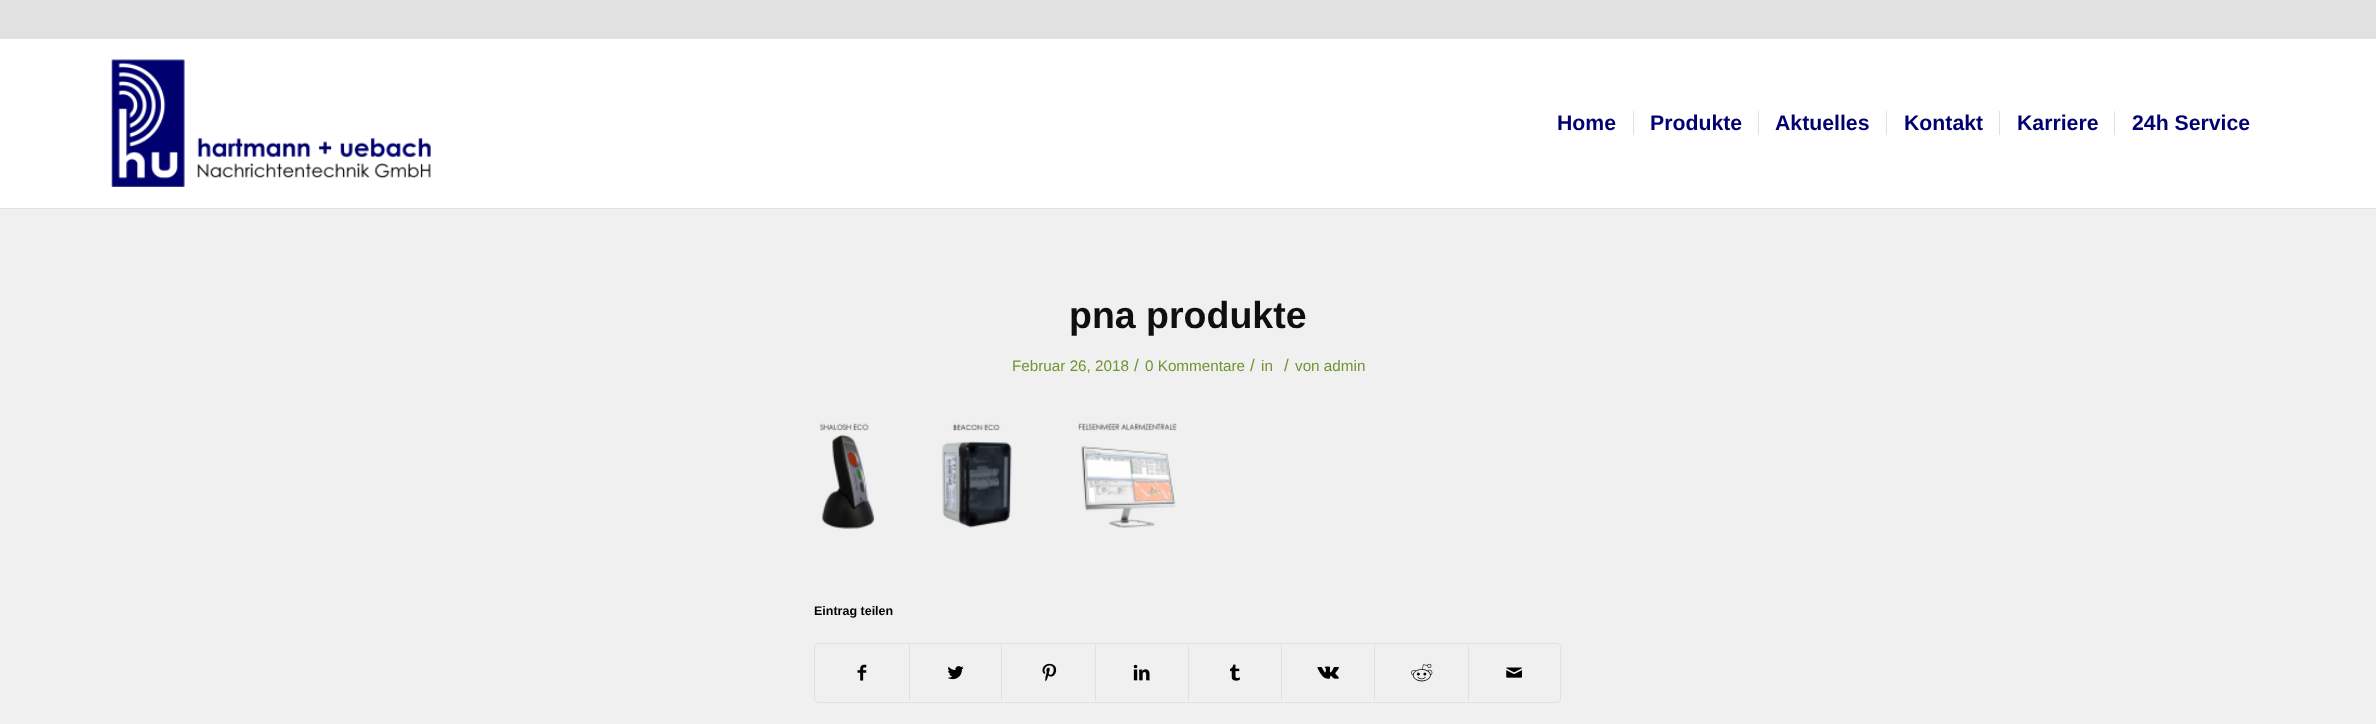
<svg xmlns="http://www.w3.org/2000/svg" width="2376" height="724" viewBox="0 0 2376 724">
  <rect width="100%" height="100%" fill="rgb(240,240,240)"/>
  <rect x="0" y="0" width="2376" height="39" fill="rgb(225,225,225)"/>
  <rect x="0" y="39" width="2376" height="169" fill="rgb(255,255,255)"/>
  <rect x="0" y="208" width="2376" height="1" fill="rgb(225,225,225)"/>
  <image x="111" y="59" width="320" height="128" href="pic1.png"/>
  <g font-family="Liberation Sans" font-size="21.25" font-weight="bold" fill="rgb(0,0,112)">
    <text x="1557" y="130">Home</text>
    <text x="1650" y="130">Produkte</text>
  </g>
  <rect x="1633" y="111" width="1" height="24" fill="rgb(225,225,225)"/>
  <text x="1775" y="130" font-family="Liberation Sans" font-size="21.25" font-weight="bold" fill="rgb(0,0,112)">Aktuelles</text>
  <rect x="1758" y="111" width="1" height="24" fill="rgb(225,225,225)"/>
  <text x="1904" y="130" font-family="Liberation Sans" font-size="21.25" font-weight="bold" fill="rgb(0,0,112)">Kontakt</text>
  <rect x="1886" y="111" width="1" height="24" fill="rgb(225,225,225)"/>
  <text x="2017" y="130" font-family="Liberation Sans" font-size="21.25" font-weight="bold" fill="rgb(0,0,112)">Karriere</text>
  <rect x="1999" y="111" width="1" height="24" fill="rgb(225,225,225)"/>
  <text x="2132" y="130" font-family="Liberation Sans" font-size="21.25" font-weight="bold" fill="rgb(0,0,112)">24h Service</text>
  <rect x="2114" y="111" width="1" height="24" fill="rgb(225,225,225)"/>
  <text x="1069" y="328" font-family="Liberation Sans" font-size="37.5" font-weight="bold" fill="rgb(15,15,15)">pna produkte</text>
  <text x="1012" y="371" font-family="Liberation Sans" font-size="15.25" fill="rgb(113,148,48)">Februar 26, 2018</text>
  <text x="1134" y="371" font-family="Liberation Sans" font-size="17" fill="rgb(113,148,48)">/</text>
  <text x="1145" y="371" font-family="Liberation Sans" font-size="15.25" fill="rgb(113,148,48)">0 Kommentare</text>
  <text x="1250" y="371" font-family="Liberation Sans" font-size="17" fill="rgb(113,148,48)">/</text>
  <text x="1261" y="371" font-family="Liberation Sans" font-size="15.25" fill="rgb(113,148,48)">in</text>
  <text x="1284" y="371" font-family="Liberation Sans" font-size="17" fill="rgb(113,148,48)">/</text>
  <text x="1295" y="371" font-family="Liberation Sans" font-size="15.25" fill="rgb(113,148,48)">von admin</text>
  <image x="820" y="423" width="357" height="106" href="pic2.png"/>
  <text x="814" y="615" font-family="Liberation Sans" font-size="12.5" font-weight="bold" fill="rgb(0,0,0)">Eintrag teilen</text>
  <rect x="814.5" y="643.5" width="746" height="59" rx="3.5" fill="none" stroke="rgb(225,225,225)"/>
  <image x="857" y="664" width="10" height="17" href="pic3.png"/>
  <rect x="909" y="644" width="1" height="57" fill="rgb(225,225,225)"/>
  <image x="947" y="666" width="17" height="14" href="pic4.png"/>
  <rect x="1001" y="644" width="1" height="57" fill="rgb(225,225,225)"/>
  <image x="1042" y="663" width="15" height="19" href="pic5.png"/>
  <rect x="1095" y="644" width="1" height="57" fill="rgb(225,225,225)"/>
  <image x="1133" y="664" width="17" height="17" href="pic6.png"/>
  <rect x="1188" y="644" width="1" height="57" fill="rgb(225,225,225)"/>
  <image x="1230" y="664" width="10" height="17" href="pic7.png"/>
  <rect x="1281" y="644" width="1" height="57" fill="rgb(225,225,225)"/>
  <image x="1317" y="666" width="22" height="13" href="pic8.png"/>
  <rect x="1374" y="644" width="1" height="57" fill="rgb(225,225,225)"/>
  <image x="1411" y="663" width="22" height="19" href="pic9.png"/>
  <rect x="1468" y="644" width="1" height="57" fill="rgb(225,225,225)"/>
  <image x="1506" y="667" width="16" height="11" href="pic10.png"/>
</svg>
